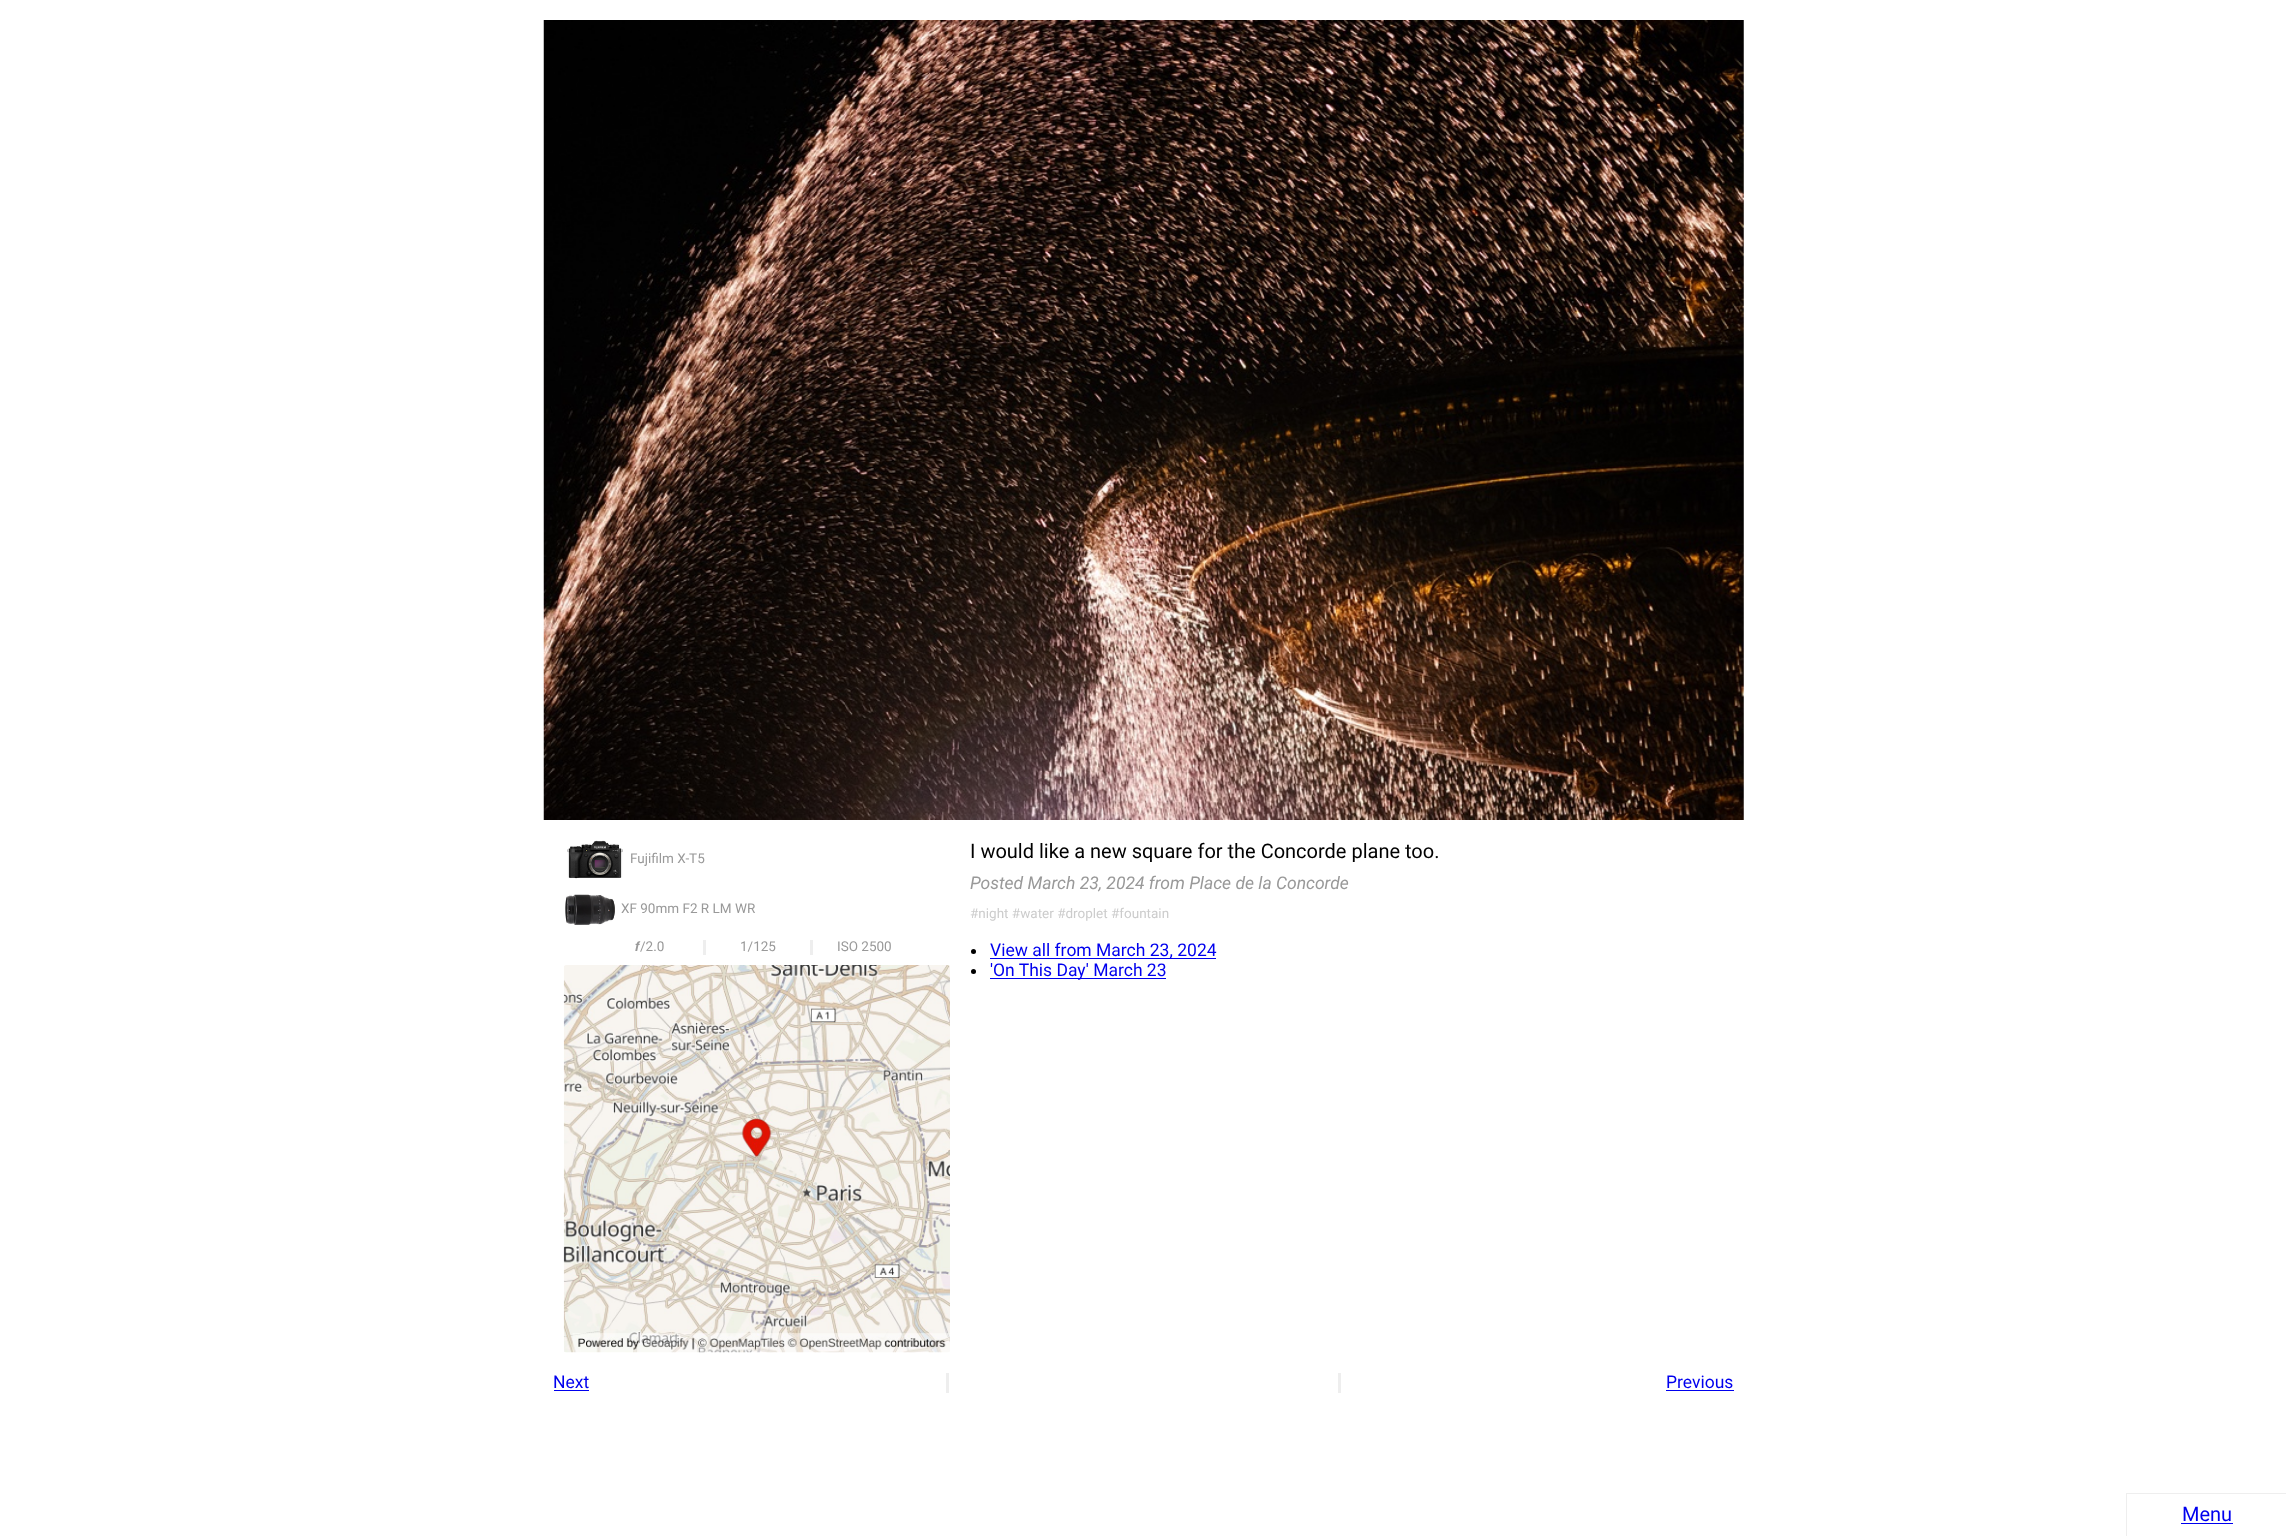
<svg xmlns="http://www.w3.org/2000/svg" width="2286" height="1536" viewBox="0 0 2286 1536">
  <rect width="100%" height="100%" fill="rgb(255,255,255)"/>
  <image x="543" y="20" width="1201" height="800" href="pic1.png"/>
  <image x="567" y="840" width="56" height="39" href="pic2.png"/>
  <text x="630" y="863" font-family="Roboto" font-size="13.5" fill="rgb(153,153,153)">Fujifilm X-T5</text>
  <image x="565" y="894" width="50" height="31" href="pic3.png"/>
  <text x="621" y="913" font-family="Roboto" font-size="13.5" fill="rgb(153,153,153)">XF 90mm F2 R LM WR</text>
  <text x="635" y="951" font-family="FreeSans" font-size="13.5" fill="rgb(153,153,153)">𝒇</text>
  <text x="640" y="951" font-family="Roboto" font-size="13.5" fill="rgb(153,153,153)">/2.0</text>
  <rect x="703" y="940" width="3" height="15" fill="rgb(238,238,238)"/>
  <text x="740" y="951" font-family="Roboto" font-size="13.5" fill="rgb(153,153,153)">1/125</text>
  <rect x="810" y="940" width="3" height="15" fill="rgb(238,238,238)"/>
  <text x="837" y="951" font-family="Roboto" font-size="13.5" fill="rgb(153,153,153)">ISO 2500</text>
  <image x="563" y="965" width="387" height="388" href="pic4.png"/>
  <text x="970" y="858" font-family="Roboto" font-size="20" fill="rgb(0,0,0)">I would like a new square for the Concorde plane too.</text>
  <text x="970" y="889" font-family="Roboto" font-size="17.5" font-style="italic" fill="rgb(153,153,153)">Posted March 23, 2024 from Place de la Concorde</text>
  <text x="970" y="918" font-family="Roboto" font-size="13.5" fill="rgb(204,204,204)">#night #water #droplet #fountain</text>
  <circle cx="973.5" cy="951.5" r="2.5" fill="rgb(0,0,0)"/>
  <rect x="990" y="958" width="226" height="1" fill="rgb(0,0,238)"/>
  <text x="990" y="956" font-family="Roboto" font-size="17.5" fill="rgb(0,0,238)">View all from March 23, 2024</text>
  <circle cx="973.5" cy="971.5" r="2.5" fill="rgb(0,0,0)"/>
  <rect x="990" y="978" width="176" height="1" fill="rgb(0,0,238)"/>
  <g font-family="Roboto" font-size="17.5" fill="rgb(0,0,238)">
    <text x="990" y="976">'On This Day' March 23</text>
    <text x="553" y="1388">Next</text>
  </g>
  <rect x="554" y="1390" width="35" height="1" fill="rgb(0,0,238)"/>
  <rect x="1338" y="1373" width="3" height="20" fill="rgb(238,238,238)"/>
  <rect x="946" y="1373" width="3" height="20" fill="rgb(238,238,238)"/>
  <text x="1666" y="1388" font-family="Roboto" font-size="17.5" fill="rgb(0,0,238)">Previous</text>
  <rect x="1666" y="1390" width="68" height="1" fill="rgb(0,0,238)"/>
  <rect x="2126" y="1493" width="160" height="1" fill="rgb(238,238,238)"/>
  <rect x="2126" y="1493" width="1" height="43" fill="rgb(238,238,238)"/>
  <text x="2182" y="1521" font-family="Roboto" font-size="20" fill="rgb(0,0,238)">Menu</text>
  <rect x="2181" y="1523" width="52" height="1" fill="rgb(0,0,238)"/>
</svg>
